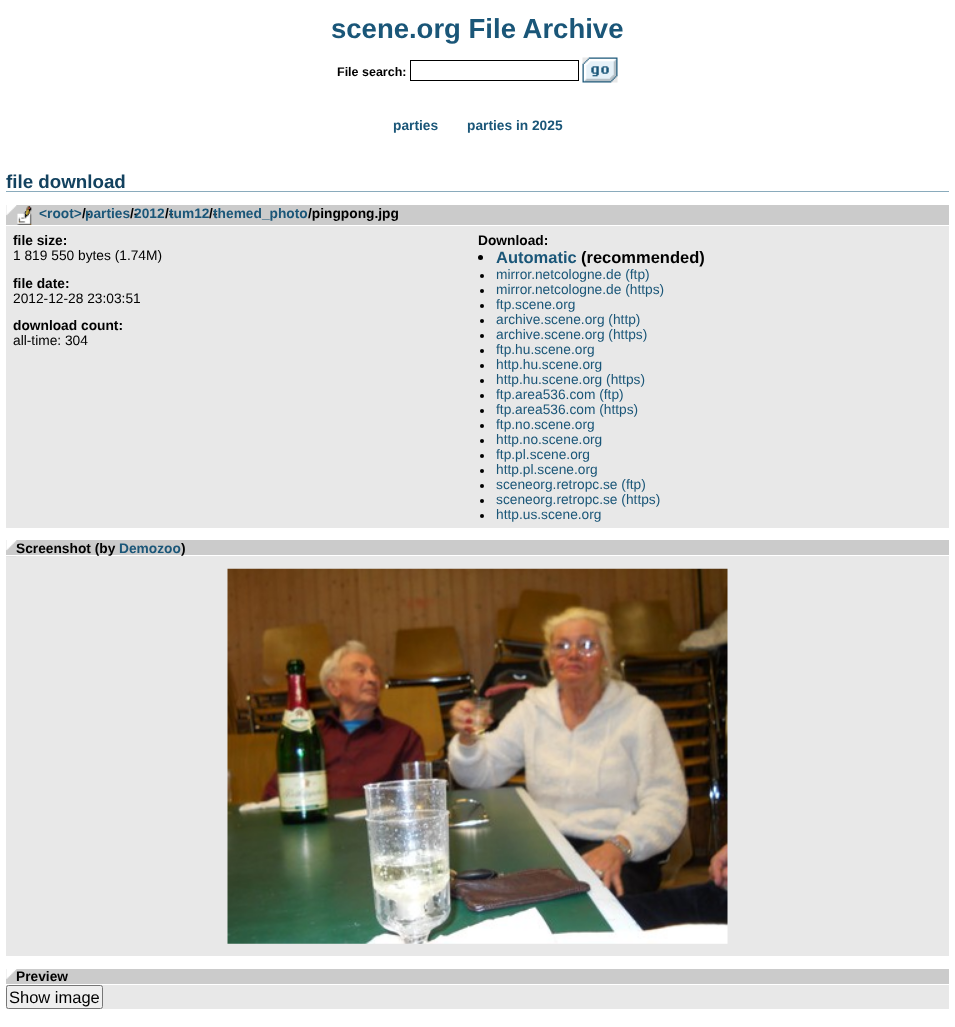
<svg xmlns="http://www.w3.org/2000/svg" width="955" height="1027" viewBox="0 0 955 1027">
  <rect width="100%" height="100%" fill="rgb(255,255,255)"/>
  <text x="331" y="38" font-family="Liberation Sans" font-size="27.5" font-weight="bold" fill="rgb(26,86,120)">scene.org File Archive</text>
  <text x="337" y="76" font-family="Liberation Sans" font-size="12.5" font-weight="bold" fill="rgb(0,0,0)">File search:</text>
  <rect x="410.5" y="60.5" width="168" height="20" fill="none" stroke="rgb(0,0,0)"/>
  <image x="582" y="57" width="36" height="26" href="pic1.png"/>
  <g font-family="Liberation Sans" font-size="13.75" font-weight="bold" fill="rgb(26,86,120)">
    <text x="393" y="130">parties</text>
    <text x="467" y="130">parties in 2025</text>
  </g>
  <rect x="6" y="191" width="943" height="1" fill="rgb(138,171,188)"/>
  <text x="6" y="188" font-family="Liberation Sans" font-size="18.75" font-weight="bold" fill="rgb(19,66,95)">file download</text>
  <rect x="6" y="226" width="943" height="302" fill="rgb(232,232,232)"/>
  <rect x="6" y="205" width="943" height="20" fill="rgb(203,203,203)"/>
  <image x="6" y="205" width="11" height="11" href="pic2.png"/>
  <image x="17" y="206" width="15" height="19" href="pic3.png"/>
  <text x="82" y="218" font-family="Liberation Sans" font-size="13.75" font-weight="bold" fill="rgb(0,0,0)">/-</text>
  <text x="85" y="218" font-family="Liberation Sans" font-size="13.75" font-weight="bold" fill="rgb(26,86,120)">parties</text>
  <text x="130" y="218" font-family="Liberation Sans" font-size="13.75" font-weight="bold" fill="rgb(0,0,0)">/-</text>
  <text x="134" y="218" font-family="Liberation Sans" font-size="13.75" font-weight="bold" fill="rgb(26,86,120)">2012</text>
  <text x="165" y="218" font-family="Liberation Sans" font-size="13.75" font-weight="bold" fill="rgb(0,0,0)">/-</text>
  <text x="169" y="218" font-family="Liberation Sans" font-size="13.75" font-weight="bold" fill="rgb(26,86,120)">tum12</text>
  <text x="209" y="218" font-family="Liberation Sans" font-size="13.75" font-weight="bold" fill="rgb(0,0,0)">/-</text>
  <g font-family="Liberation Sans" font-size="13.75" font-weight="bold" fill="rgb(26,86,120)">
    <text x="39" y="218">&lt;root&gt;</text>
    <text x="213" y="218">themed_photo</text>
  </g>
  <g font-family="Liberation Sans" font-size="13.75" font-weight="bold" fill="rgb(0,0,0)">
    <text x="308" y="218">/pingpong.jpg</text>
    <text x="13" y="245">file size:</text>
  </g>
  <text x="13" y="260" font-family="Liberation Sans" font-size="13.75" fill="rgb(0,0,0)">1 819 550 bytes (1.74M)</text>
  <text x="13" y="288" font-family="Liberation Sans" font-size="13.75" font-weight="bold" fill="rgb(0,0,0)">file date:</text>
  <text x="13" y="303" font-family="Liberation Sans" font-size="13.75" fill="rgb(0,0,0)">2012-12-28 23:03:51</text>
  <text x="13" y="330" font-family="Liberation Sans" font-size="13.75" font-weight="bold" fill="rgb(0,0,0)">download count:</text>
  <text x="13" y="345" font-family="Liberation Sans" font-size="13.75" fill="rgb(0,0,0)">all-time: 304</text>
  <text x="478" y="245" font-family="Liberation Sans" font-size="13.75" font-weight="bold" fill="rgb(0,0,0)">Download:</text>
  <circle cx="480.5" cy="257.5" r="2.5" fill="rgb(0,0,0)"/>
  <text x="496" y="263" font-family="Liberation Sans" font-size="16.5" font-weight="bold" fill="rgb(26,86,120)">Automatic</text>
  <text x="581" y="263" font-family="Liberation Sans" font-size="16.5" font-weight="bold" fill="rgb(0,0,0)">(recommended)</text>
  <circle cx="482" cy="276" r="2" fill="rgb(0,0,0)"/>
  <text x="496" y="279" font-family="Liberation Sans" font-size="13.75" fill="rgb(26,86,120)">mirror.netcologne.de (ftp)</text>
  <circle cx="482" cy="291" r="2" fill="rgb(0,0,0)"/>
  <text x="496" y="294" font-family="Liberation Sans" font-size="13.75" fill="rgb(26,86,120)">mirror.netcologne.de (https)</text>
  <circle cx="482" cy="306" r="2" fill="rgb(0,0,0)"/>
  <text x="496" y="309" font-family="Liberation Sans" font-size="13.75" fill="rgb(26,86,120)">ftp.scene.org</text>
  <circle cx="482" cy="321" r="2" fill="rgb(0,0,0)"/>
  <text x="496" y="324" font-family="Liberation Sans" font-size="13.75" fill="rgb(26,86,120)">archive.scene.org (http)</text>
  <circle cx="482" cy="336" r="2" fill="rgb(0,0,0)"/>
  <text x="496" y="339" font-family="Liberation Sans" font-size="13.75" fill="rgb(26,86,120)">archive.scene.org (https)</text>
  <circle cx="482" cy="351" r="2" fill="rgb(0,0,0)"/>
  <text x="496" y="354" font-family="Liberation Sans" font-size="13.75" fill="rgb(26,86,120)">ftp.hu.scene.org</text>
  <circle cx="482" cy="366" r="2" fill="rgb(0,0,0)"/>
  <text x="496" y="369" font-family="Liberation Sans" font-size="13.75" fill="rgb(26,86,120)">http.hu.scene.org</text>
  <circle cx="482" cy="381" r="2" fill="rgb(0,0,0)"/>
  <text x="496" y="384" font-family="Liberation Sans" font-size="13.75" fill="rgb(26,86,120)">http.hu.scene.org (https)</text>
  <circle cx="482" cy="396" r="2" fill="rgb(0,0,0)"/>
  <text x="496" y="399" font-family="Liberation Sans" font-size="13.75" fill="rgb(26,86,120)">ftp.area536.com (ftp)</text>
  <circle cx="482" cy="411" r="2" fill="rgb(0,0,0)"/>
  <text x="496" y="414" font-family="Liberation Sans" font-size="13.75" fill="rgb(26,86,120)">ftp.area536.com (https)</text>
  <circle cx="482" cy="426" r="2" fill="rgb(0,0,0)"/>
  <text x="496" y="429" font-family="Liberation Sans" font-size="13.75" fill="rgb(26,86,120)">ftp.no.scene.org</text>
  <circle cx="482" cy="441" r="2" fill="rgb(0,0,0)"/>
  <text x="496" y="444" font-family="Liberation Sans" font-size="13.75" fill="rgb(26,86,120)">http.no.scene.org</text>
  <circle cx="482" cy="456" r="2" fill="rgb(0,0,0)"/>
  <text x="496" y="459" font-family="Liberation Sans" font-size="13.75" fill="rgb(26,86,120)">ftp.pl.scene.org</text>
  <circle cx="482" cy="471" r="2" fill="rgb(0,0,0)"/>
  <text x="496" y="474" font-family="Liberation Sans" font-size="13.75" fill="rgb(26,86,120)">http.pl.scene.org</text>
  <circle cx="482" cy="486" r="2" fill="rgb(0,0,0)"/>
  <text x="496" y="489" font-family="Liberation Sans" font-size="13.75" fill="rgb(26,86,120)">sceneorg.retropc.se (ftp)</text>
  <circle cx="482" cy="501" r="2" fill="rgb(0,0,0)"/>
  <text x="496" y="504" font-family="Liberation Sans" font-size="13.75" fill="rgb(26,86,120)">sceneorg.retropc.se (https)</text>
  <circle cx="482" cy="516" r="2" fill="rgb(0,0,0)"/>
  <text x="496" y="519" font-family="Liberation Sans" font-size="13.75" fill="rgb(26,86,120)">http.us.scene.org</text>
  <rect x="6" y="556" width="943" height="400" fill="rgb(232,232,232)"/>
  <rect x="6" y="540" width="943" height="15" fill="rgb(203,203,203)"/>
  <image x="6" y="540" width="11" height="17" href="pic4.png"/>
  <rect x="6" y="555" width="11" height="1" fill="rgb(255,255,255)"/>
  <text x="16" y="553" font-family="Liberation Sans" font-size="13.75" font-weight="bold" fill="rgb(0,0,0)">Screenshot (by</text>
  <text x="119" y="553" font-family="Liberation Sans" font-size="13.75" font-weight="bold" fill="rgb(26,86,120)">Demozoo</text>
  <text x="181" y="553" font-family="Liberation Sans" font-size="13.75" font-weight="bold" fill="rgb(0,0,0)">)</text>
  <image x="227" y="568" width="501" height="376" href="pic5.png"/>
  <rect x="6" y="985" width="943" height="24" fill="rgb(232,232,232)"/>
  <rect x="6" y="969" width="943" height="15" fill="rgb(203,203,203)"/>
  <image x="6" y="969" width="11" height="10" href="pic6.png"/>
  <text x="16" y="981" font-family="Liberation Sans" font-size="13.75" font-weight="bold" fill="rgb(0,0,0)">Preview</text>
  <rect x="6.5" y="985.5" width="96" height="23" rx="2" fill="rgb(239,239,239)" stroke="rgb(118,118,118)"/>
  <text x="9" y="1003" font-family="Liberation Sans" font-size="16.5" fill="rgb(0,0,0)">Show image</text>
</svg>
